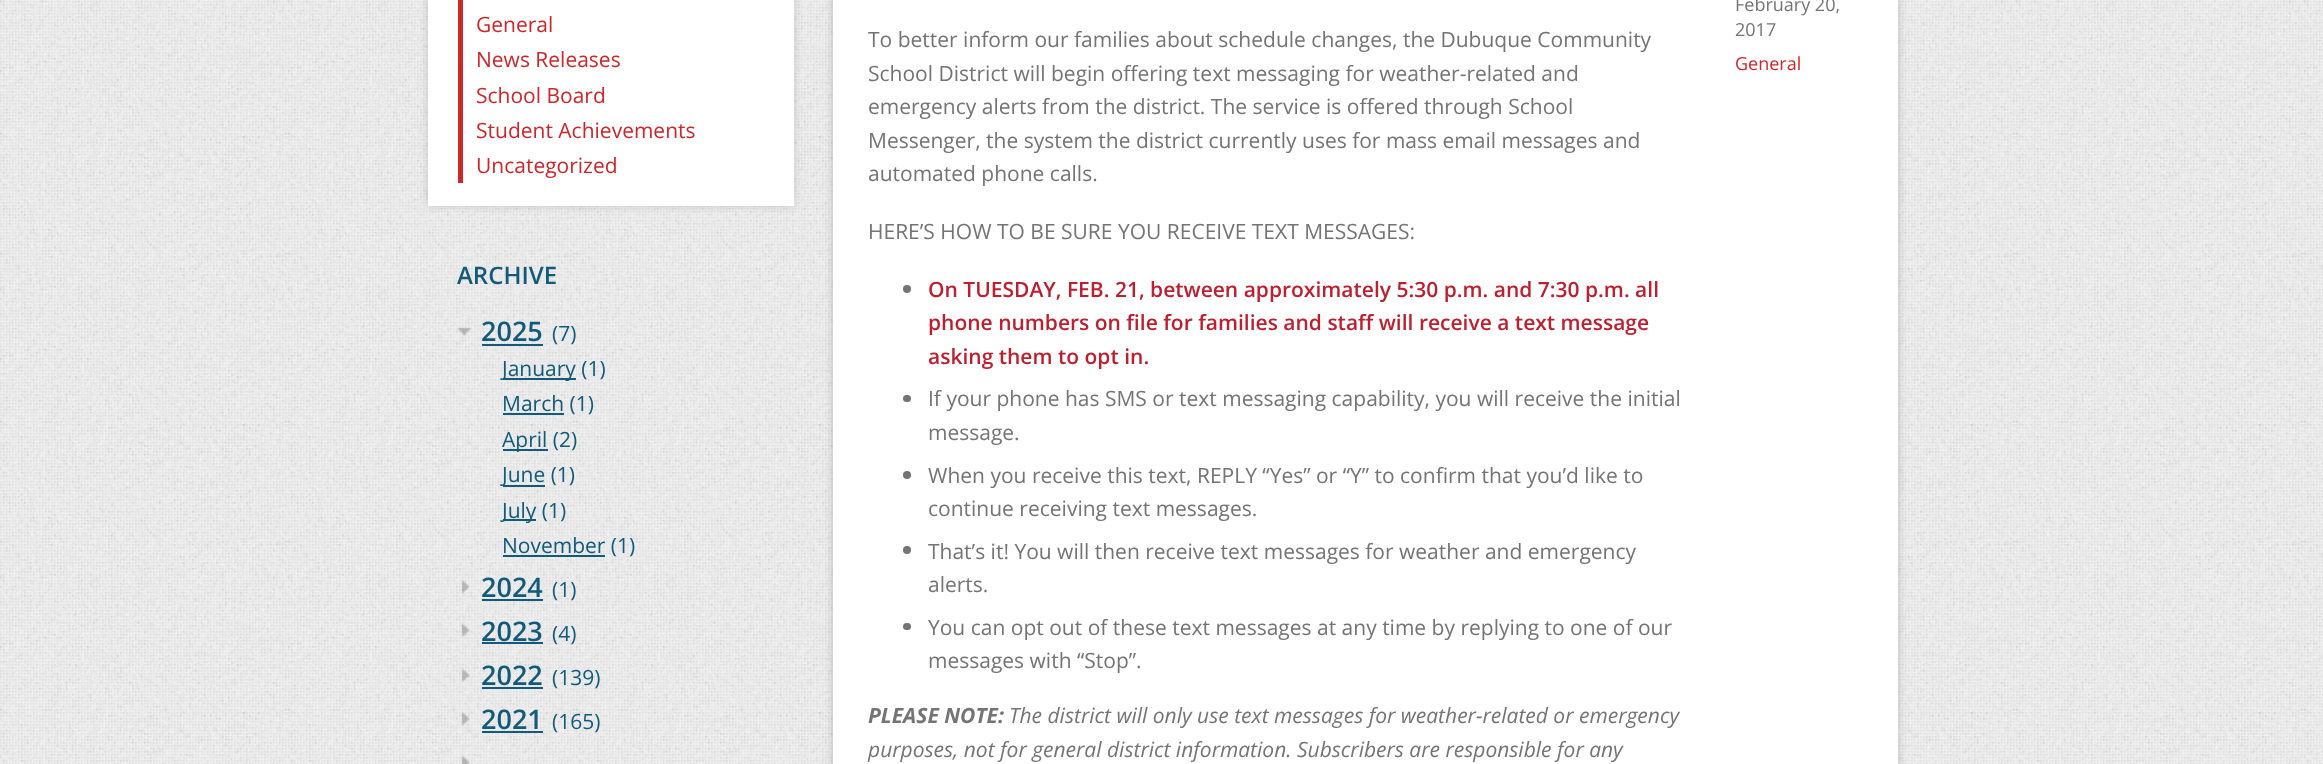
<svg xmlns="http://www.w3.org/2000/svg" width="2323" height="764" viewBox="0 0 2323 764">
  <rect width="100%" height="100%" fill="rgb(255,255,255)"/>
  <image x="0" y="0" width="2323" height="764" href="pic1.png"/>
  <rect x="428" y="-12" width="366" height="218" fill="rgba(0,0,0,0.15)" filter="blur(4px)"/>
  <rect x="428" y="0" width="366" height="206" fill="rgb(255,255,255)"/>
  <rect x="458" y="0" width="5" height="183" fill="rgb(207,38,41)"/>
  <g font-family="Open Sans" font-size="21" fill="rgb(207,38,41)">
    <text>
      <tspan x="476" y="32">General</tspan>
      <tspan x="476" y="67">News Releases</tspan>
      <tspan x="476" y="103">School Board</tspan>
      <tspan x="476" y="138">Student Achievements</tspan>
      <tspan x="476" y="173">Uncategorized</tspan>
    </text>
  </g>
  <text x="457" y="284" font-family="Open Sans" font-size="24" font-weight="600" fill="rgb(17,90,123)">ARCHIVE</text>
  <image x="457" y="327" width="15" height="9" href="pic2.png"/>
  <text x="481" y="341" font-family="Open Sans" font-size="27" font-weight="600" fill="rgb(17,90,123)">2025</text>
  <rect x="482" y="344" width="61" height="2" fill="rgb(17,90,123)"/>
  <text x="552" y="341" font-family="Open Sans" font-size="21" fill="rgb(17,90,123)">(7)</text>
  <rect x="503" y="378" width="73" height="2" fill="rgb(17,90,123)"/>
  <text x="502" y="376" font-family="Open Sans" font-size="21" fill="rgb(17,90,123)">January (1)</text>
  <rect x="503" y="413" width="61" height="2" fill="rgb(17,90,123)"/>
  <text x="502" y="411" font-family="Open Sans" font-size="21" fill="rgb(17,90,123)">March (1)</text>
  <rect x="503" y="449" width="45" height="2" fill="rgb(17,90,123)"/>
  <text x="502" y="447" font-family="Open Sans" font-size="21" fill="rgb(17,90,123)">April (2)</text>
  <rect x="503" y="485" width="42" height="2" fill="rgb(17,90,123)"/>
  <text x="502" y="482" font-family="Open Sans" font-size="21" fill="rgb(17,90,123)">June (1)</text>
  <rect x="503" y="519" width="33" height="2" fill="rgb(17,90,123)"/>
  <text x="502" y="518" font-family="Open Sans" font-size="21" fill="rgb(17,90,123)">July (1)</text>
  <rect x="503" y="555" width="102" height="2" fill="rgb(17,90,123)"/>
  <text x="502" y="553" font-family="Open Sans" font-size="21" fill="rgb(17,90,123)">November (1)</text>
  <image x="461" y="580" width="9" height="14" href="pic3.png"/>
  <text x="481" y="597" font-family="Open Sans" font-size="27" font-weight="600" fill="rgb(17,90,123)">2024</text>
  <rect x="482" y="599" width="61" height="2" fill="rgb(17,90,123)"/>
  <text x="552" y="597" font-family="Open Sans" font-size="21" fill="rgb(17,90,123)">(1)</text>
  <image x="461" y="623" width="9" height="15" href="pic4.png"/>
  <text x="481" y="641" font-family="Open Sans" font-size="27" font-weight="600" fill="rgb(17,90,123)">2023</text>
  <rect x="482" y="642" width="61" height="2" fill="rgb(17,90,123)"/>
  <text x="552" y="641" font-family="Open Sans" font-size="21" fill="rgb(17,90,123)">(4)</text>
  <image x="461" y="668" width="9" height="15" href="pic5.png"/>
  <text x="481" y="685" font-family="Open Sans" font-size="27" font-weight="600" fill="rgb(17,90,123)">2022</text>
  <rect x="482" y="687" width="61" height="2" fill="rgb(17,90,123)"/>
  <text x="552" y="685" font-family="Open Sans" font-size="21" fill="rgb(17,90,123)">(139)</text>
  <image x="461" y="712" width="9" height="14" href="pic6.png"/>
  <text x="481" y="729" font-family="Open Sans" font-size="27" font-weight="600" fill="rgb(17,90,123)">2021</text>
  <rect x="482" y="731" width="61" height="2" fill="rgb(17,90,123)"/>
  <text x="552" y="729" font-family="Open Sans" font-size="21" fill="rgb(17,90,123)">(165)</text>
  <image x="461" y="755" width="9" height="9" href="pic7.png"/>
  <rect x="833" y="-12" width="1065" height="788" fill="rgba(0,0,0,0.2)" filter="blur(4px)"/>
  <rect x="833" y="0" width="1065" height="764" fill="rgb(255,255,255)"/>
  <g font-family="Open Sans" font-size="21" fill="rgb(116,116,116)">
    <text>
      <tspan x="868" y="47">To better inform our families about schedule changes, the Dubuque Community</tspan>
      <tspan x="868" y="81">School District will begin offering text messaging for weather-related and</tspan>
      <tspan x="868" y="114">emergency alerts from the district. The service is offered through School</tspan>
      <tspan x="868" y="148">Messenger, the system the district currently uses for mass email messages and</tspan>
      <tspan x="868" y="181">automated phone calls.</tspan>
    </text>
    <text x="868" y="239">HERE’S HOW TO BE SURE YOU RECEIVE TEXT MESSAGES:</text>
  </g>
  <circle cx="907" cy="289" r="4" fill="rgb(116,116,116)"/>
  <g font-family="Open Sans" font-size="21" font-weight="600" fill="rgb(191,30,46)">
    <text>
      <tspan x="928" y="297">On TUESDAY, FEB. 21, between approximately 5:30 p.m. and 7:30 p.m. all</tspan>
      <tspan x="928" y="330">phone numbers on file for families and staff will receive a text message</tspan>
      <tspan x="928" y="364">asking them to opt in.</tspan>
    </text>
  </g>
  <rect x="903" y="395" width="8" height="7" rx="3.5" fill="rgb(116,116,116)"/>
  <g font-family="Open Sans" font-size="21" fill="rgb(116,116,116)">
    <text>
      <tspan x="928" y="406">If your phone has SMS or text messaging capability, you will receive the initial</tspan>
      <tspan x="928" y="440">message.</tspan>
    </text>
  </g>
  <circle cx="907" cy="475" r="4" fill="rgb(116,116,116)"/>
  <g font-family="Open Sans" font-size="21" fill="rgb(116,116,116)">
    <text>
      <tspan x="928" y="483">When you receive this text, REPLY “Yes” or “Y” to confirm that you’d like to</tspan>
      <tspan x="928" y="516">continue receiving text messages.</tspan>
    </text>
  </g>
  <circle cx="907" cy="550" r="4" fill="rgb(116,116,116)"/>
  <g font-family="Open Sans" font-size="21" fill="rgb(116,116,116)">
    <text>
      <tspan x="928" y="559">That’s it! You will then receive text messages for weather and emergency</tspan>
      <tspan x="928" y="592">alerts.</tspan>
    </text>
  </g>
  <rect x="903" y="623" width="8" height="7" rx="3.5" fill="rgb(116,116,116)"/>
  <g font-family="Open Sans" font-size="21" fill="rgb(116,116,116)">
    <text>
      <tspan x="928" y="635">You can opt out of these text messages at any time by replying to one of our</tspan>
      <tspan x="928" y="668">messages with “Stop”.</tspan>
    </text>
  </g>
  <text x="868" y="723" font-family="Open Sans" font-size="21" font-weight="bold" font-style="italic" fill="rgb(116,116,116)">PLEASE NOTE:</text>
  <g font-family="Open Sans" font-size="21" font-style="italic" fill="rgb(116,116,116)">
    <text x="1009" y="723">The district will only use text messages for weather-related or emergency</text>
    <text x="868" y="757">purposes, not for general district information. Subscribers are responsible for any</text>
  </g>
  <g font-family="Open Sans" font-size="18" fill="rgb(116,116,116)">
    <text>
      <tspan x="1735" y="11">February 20,</tspan>
      <tspan x="1735" y="36">2017</tspan>
    </text>
  </g>
  <text x="1735" y="70" font-family="Open Sans" font-size="18" fill="rgb(207,38,41)">General</text>
</svg>
